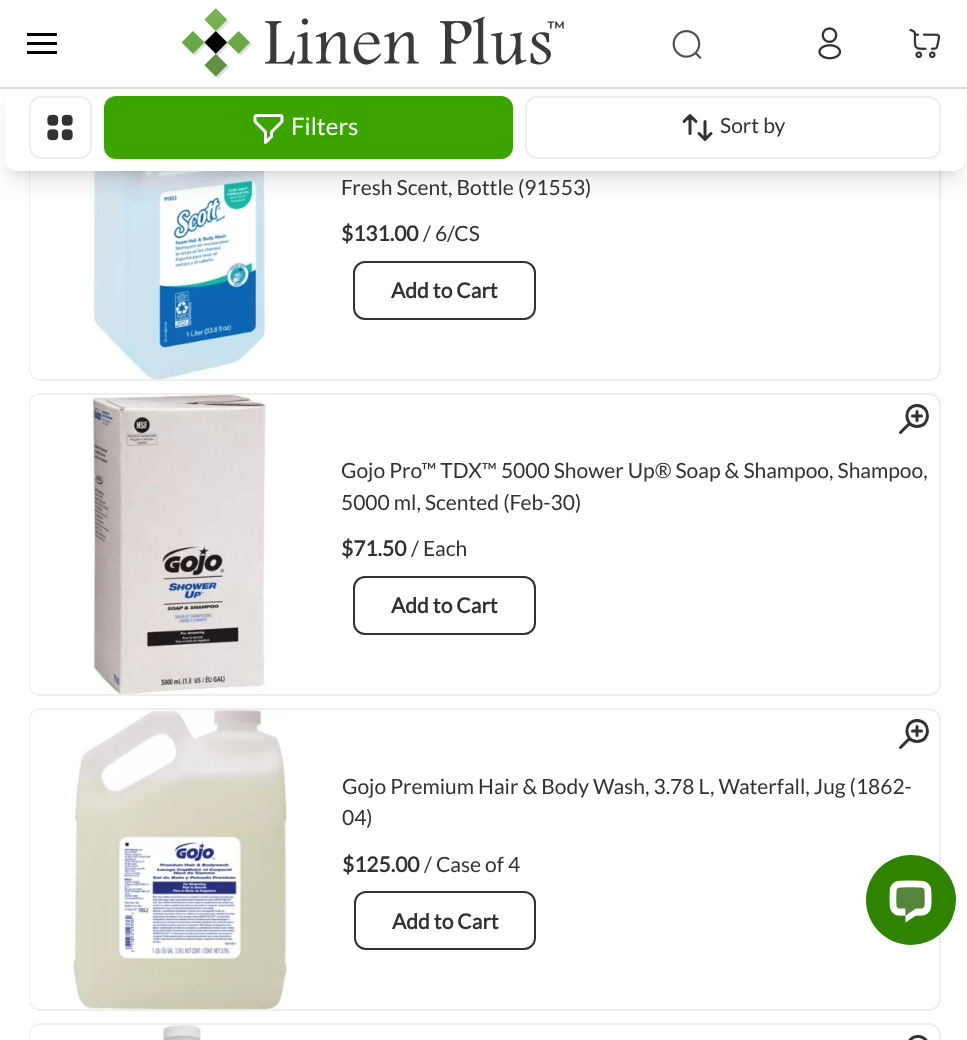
<svg xmlns="http://www.w3.org/2000/svg" width="967" height="1040" viewBox="0 0 967 1040">
  <rect width="100%" height="100%" fill="rgb(255,255,255)"/>
  <rect x="30" y="79" width="910" height="301" rx="11" fill="none" stroke="rgb(238,238,238)" stroke-width="2"/>
  <image x="30" y="171" width="236" height="208" href="pic7.png"/>
  <rect x="11" y="96" width="948" height="75" rx="6" fill="rgba(0,0,0,0.1)" filter="blur(4.5px)"/>
  <rect x="9" y="104" width="951" height="78" rx="8" fill="rgba(0,0,0,0.1)" filter="blur(11px)"/>
  <rect x="30" y="78" width="910" height="6" fill="rgb(255,255,255)"/>
  <rect x="5" y="84" width="960" height="87" rx="12" fill="rgb(255,255,255)"/>
  <rect x="0" y="87" width="967" height="2" fill="rgb(221,221,221)"/>
  <rect x="27" y="33" width="30" height="3" fill="rgb(0,0,0)"/>
  <rect x="27" y="42" width="30" height="3" fill="rgb(0,0,0)"/>
  <rect x="27" y="51" width="30" height="3" fill="rgb(0,0,0)"/>
  <image x="181" y="8" width="383" height="71" href="pic1.png"/>
  <image x="672" y="30" width="30" height="29" href="pic2.png"/>
  <image x="818" y="27" width="24" height="33" href="pic3.png"/>
  <image x="909" y="28" width="32" height="31" href="pic4.png"/>
  <rect x="30" y="97" width="61" height="61" rx="11" fill="none" stroke="rgb(238,238,238)" stroke-width="2"/>
  <image x="47" y="114" width="26" height="27" href="pic5.png"/>
  <rect x="104" y="96" width="409" height="63" rx="12" fill="rgb(60,164,0)"/>
  <image x="253" y="114" width="31" height="30" href="pic6.png"/>
  <text x="291" y="135" font-family="Lato" font-size="24" fill="rgb(255,255,255)">Filters</text>
  <rect x="526" y="97" width="414" height="61" rx="11" fill="none" stroke="rgb(238,238,238)" stroke-width="2"/>
  <path d="M690 133.5V115.5M690 115.5L684 121.5M690 115.5L696 121.5M705 121.5V139.5M705 139.5L711 133.5M705 139.5L699 133.5" fill="none" stroke="rgb(50,50,50)" stroke-width="3" stroke-linecap="round" stroke-linejoin="round"/>
  <g font-family="Lato" font-size="21" fill="rgb(50,50,50)">
    <text x="720" y="133">Sort by</text>
    <text x="341" y="195">Fresh Scent, Bottle (91553)</text>
  </g>
  <text x="341" y="241" font-family="Lato" font-size="21" font-weight="bold" fill="rgb(50,50,50)">$131.00</text>
  <text x="423" y="241" font-family="Lato" font-size="21" fill="rgb(50,50,50)">/ 6/CS</text>
  <rect x="354" y="262" width="181" height="57" rx="11" fill="none" stroke="rgb(50,50,50)" stroke-width="2"/>
  <text x="391" y="298" font-family="Lato" font-size="21" font-weight="bold" fill="rgb(50,50,50)">Add to Cart</text>
  <rect x="30" y="394" width="910" height="301" rx="11" fill="none" stroke="rgb(238,238,238)" stroke-width="2"/>
  <path d="M900.5 432.5L909.5 423.5M917 426.5C903.5 426.5 903.5 405.5 917 405.5C931 405.5 931 426.5 917 426.5ZM921.5 416H917M917 416H912.5M917 416V420.5M917 416V411.5" fill="none" stroke="rgb(50,50,50)" stroke-width="3" stroke-linecap="round" stroke-linejoin="round"/>
  <image x="30" y="394" width="236" height="300" href="pic8.png"/>
  <g font-family="Lato" font-size="21" fill="rgb(50,50,50)">
    <text>
      <tspan x="341" y="478">Gojo Pro™ TDX™ 5000 Shower Up® Soap &amp; Shampoo, Shampoo,</tspan>
      <tspan x="341" y="510">5000 ml, Scented (Feb-30)</tspan>
    </text>
  </g>
  <text x="341" y="556" font-family="Lato" font-size="21" font-weight="bold" fill="rgb(50,50,50)">$71.50</text>
  <text x="411" y="556" font-family="Lato" font-size="21" fill="rgb(50,50,50)">/ Each</text>
  <rect x="354" y="577" width="181" height="57" rx="11" fill="none" stroke="rgb(50,50,50)" stroke-width="2"/>
  <text x="391" y="613" font-family="Lato" font-size="21" font-weight="bold" fill="rgb(50,50,50)">Add to Cart</text>
  <rect x="30" y="709" width="910" height="301" rx="11" fill="none" stroke="rgb(238,238,238)" stroke-width="2"/>
  <path d="M900.5 747.5L909.5 738.5M917 741.5C903.5 741.5 903.5 720.5 917 720.5C931 720.5 931 741.5 917 741.5ZM921.5 731H917M917 731H912.5M917 731V735.5M917 731V726.5" fill="none" stroke="rgb(50,50,50)" stroke-width="3" stroke-linecap="round" stroke-linejoin="round"/>
  <image x="30" y="710" width="260" height="300" href="pic9.png"/>
  <g font-family="Lato" font-size="21" fill="rgb(50,50,50)">
    <text>
      <tspan x="342" y="794">Gojo Premium Hair &amp; Body Wash, 3.78 L, Waterfall, Jug (1862-</tspan>
      <tspan x="342" y="825">04)</tspan>
    </text>
  </g>
  <text x="342" y="872" font-family="Lato" font-size="21" font-weight="bold" fill="rgb(50,50,50)">$125.00</text>
  <text x="424" y="872" font-family="Lato" font-size="21" fill="rgb(50,50,50)">/ Case of 4</text>
  <rect x="355" y="892" width="180" height="57" rx="11" fill="none" stroke="rgb(50,50,50)" stroke-width="2"/>
  <text x="392" y="929" font-family="Lato" font-size="21" font-weight="bold" fill="rgb(50,50,50)">Add to Cart</text>
  <rect x="30" y="1024" width="910" height="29" rx="11" fill="none" stroke="rgb(238,238,238)" stroke-width="2"/>
  <image x="30" y="1025" width="171" height="15" href="pic10.png"/>
  <image x="908" y="1034" width="20" height="6" href="pic11.png"/>
  <circle cx="911" cy="900" r="45" fill="rgb(48,131,0)"/>
  <image x="889" y="880" width="43" height="43" href="pic12.png"/>
</svg>
